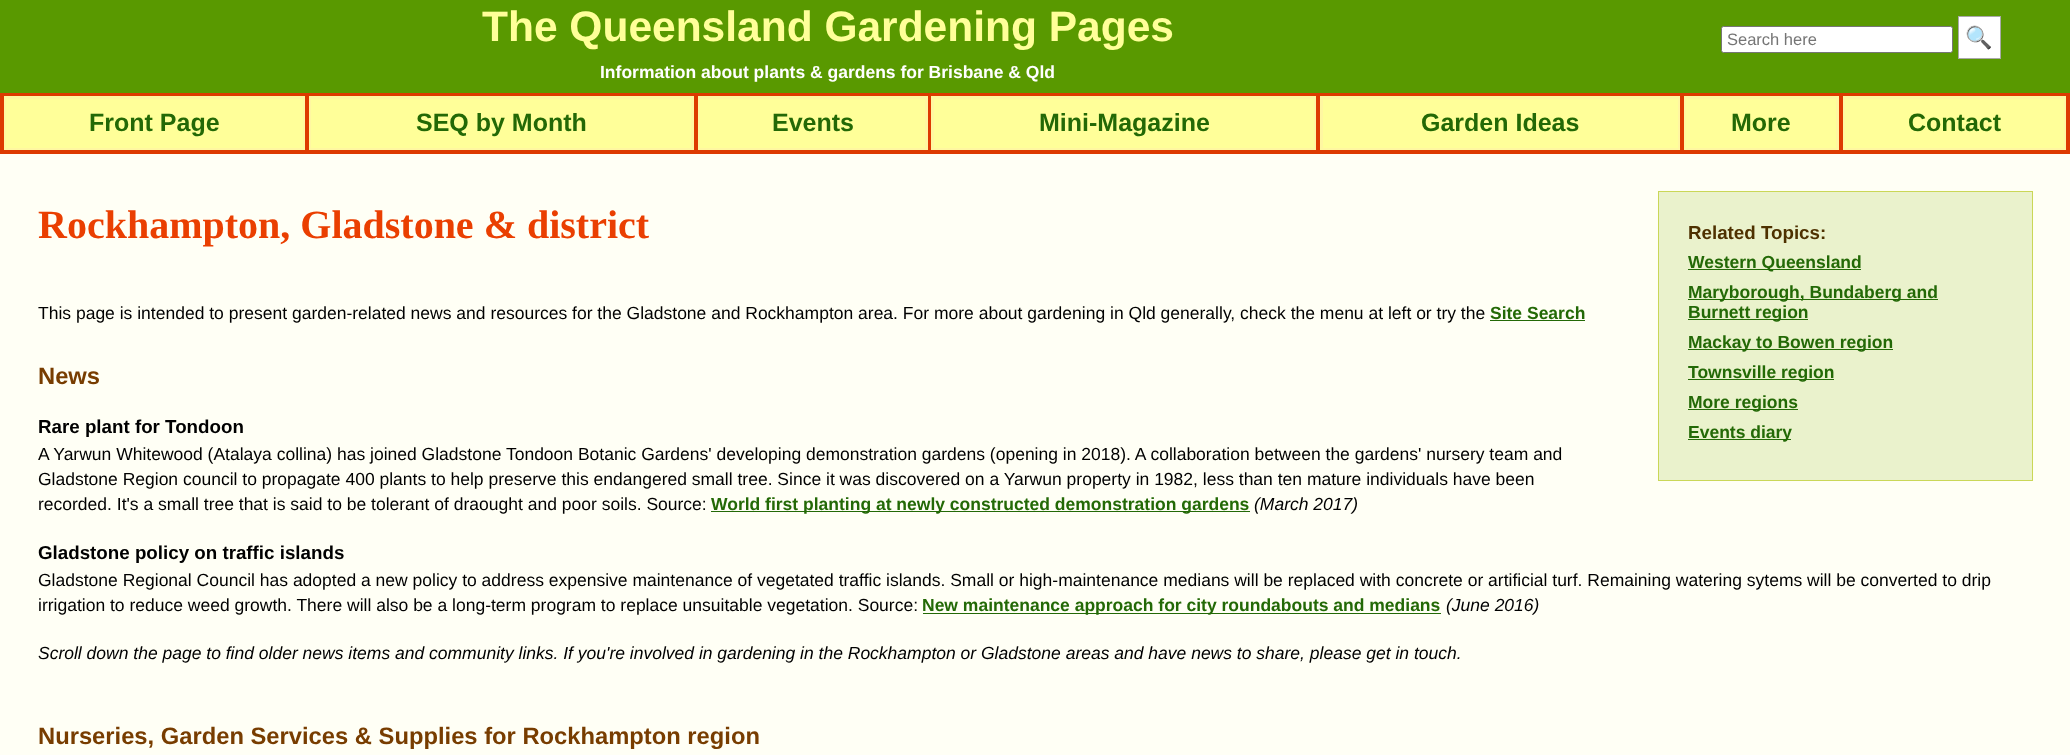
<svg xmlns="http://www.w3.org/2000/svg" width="2070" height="755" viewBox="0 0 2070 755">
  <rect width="100%" height="100%" fill="rgb(89,153,0)"/>
  <text x="482" y="41" font-family="Liberation Sans" font-size="42.5" font-weight="bold" fill="rgb(255,255,153)">The Queensland Gardening Pages</text>
  <text x="600" y="78" font-family="Liberation Sans" font-size="17.5" font-weight="bold" fill="rgb(255,255,255)">Information about plants &amp; gardens for Brisbane &amp; Qld</text>
  <rect x="1721.5" y="26.5" width="231" height="26" rx="2" fill="rgb(255,255,255)" stroke="rgb(118,118,118)"/>
  <text x="1727" y="45" font-family="Liberation Sans" font-size="16.5" fill="rgb(117,117,117)">Search here</text>
  <rect x="1958.5" y="16.5" width="42" height="42" fill="rgb(255,255,255)" stroke="rgb(169,169,169)"/>
  <text x="1965" y="45" font-family="Noto Color Emoji" font-size="22" fill="rgb(0,0,0)">🔍</text>
  <rect x="0" y="93" width="2070" height="61" fill="rgb(221,58,0)"/>
  <rect x="4" y="96" width="301" height="54" fill="rgb(255,247,161)"/>
  <rect x="6" y="99" width="297" height="49" fill="rgb(255,255,153)"/>
  <text x="89" y="131" font-family="Liberation Sans" font-size="25" font-weight="bold" fill="rgb(35,105,6)">Front Page</text>
  <rect x="309" y="96" width="385" height="54" fill="rgb(255,247,161)"/>
  <rect x="311" y="99" width="380" height="49" fill="rgb(255,255,153)"/>
  <text x="416" y="131" font-family="Liberation Sans" font-size="25" font-weight="bold" fill="rgb(35,105,6)">SEQ by Month</text>
  <rect x="698" y="96" width="230" height="54" fill="rgb(255,247,161)"/>
  <rect x="700" y="99" width="225" height="49" fill="rgb(255,255,153)"/>
  <text x="772" y="131" font-family="Liberation Sans" font-size="25" font-weight="bold" fill="rgb(35,105,6)">Events</text>
  <rect x="931" y="96" width="385" height="54" fill="rgb(255,247,161)"/>
  <rect x="934" y="99" width="380" height="49" fill="rgb(255,255,153)"/>
  <text x="1039" y="131" font-family="Liberation Sans" font-size="25" font-weight="bold" fill="rgb(35,105,6)">Mini-Magazine</text>
  <rect x="1320" y="96" width="360" height="54" fill="rgb(255,247,161)"/>
  <rect x="1323" y="99" width="355" height="49" fill="rgb(255,255,153)"/>
  <text x="1421" y="131" font-family="Liberation Sans" font-size="25" font-weight="bold" fill="rgb(35,105,6)">Garden Ideas</text>
  <rect x="1684" y="96" width="155" height="54" fill="rgb(255,247,161)"/>
  <rect x="1686" y="99" width="150" height="49" fill="rgb(255,255,153)"/>
  <text x="1731" y="131" font-family="Liberation Sans" font-size="25" font-weight="bold" fill="rgb(35,105,6)">More</text>
  <rect x="1843" y="96" width="223" height="54" fill="rgb(255,247,161)"/>
  <rect x="1845" y="99" width="219" height="49" fill="rgb(255,255,153)"/>
  <text x="1908" y="131" font-family="Liberation Sans" font-size="25" font-weight="bold" fill="rgb(35,105,6)">Contact</text>
  <rect x="0" y="154" width="2070" height="601" fill="rgb(255,255,245)"/>
  <text x="38" y="238" font-family="Liberation Serif" font-size="40" font-weight="bold" fill="rgb(234,63,1)">Rockhampton, Gladstone &amp; district</text>
  <rect x="1658.5" y="191.5" width="374" height="289" fill="rgb(234,242,204)" stroke="rgb(202,215,87)"/>
  <text x="1688" y="239" font-family="Liberation Sans" font-size="18.75" font-weight="bold" fill="rgb(78,49,0)">Related Topics:</text>
  <rect x="1688" y="269" width="173" height="1" fill="rgb(35,105,6)"/>
  <text x="1688" y="268" font-family="Liberation Sans" font-size="17.5" font-weight="bold" fill="rgb(35,105,6)">Western Queensland</text>
  <rect x="1688" y="299" width="250" height="1" fill="rgb(35,105,6)"/>
  <text x="1688" y="298" font-family="Liberation Sans" font-size="17.5" font-weight="bold" fill="rgb(35,105,6)">Maryborough, Bundaberg and</text>
  <rect x="1688" y="319" width="120" height="1" fill="rgb(35,105,6)"/>
  <text x="1688" y="318" font-family="Liberation Sans" font-size="17.5" font-weight="bold" fill="rgb(35,105,6)">Burnett region</text>
  <rect x="1688" y="349" width="205" height="1" fill="rgb(35,105,6)"/>
  <text x="1688" y="348" font-family="Liberation Sans" font-size="17.5" font-weight="bold" fill="rgb(35,105,6)">Mackay to Bowen region</text>
  <rect x="1688" y="379" width="146" height="1" fill="rgb(35,105,6)"/>
  <text x="1688" y="378" font-family="Liberation Sans" font-size="17.5" font-weight="bold" fill="rgb(35,105,6)">Townsville region</text>
  <rect x="1688" y="409" width="110" height="1" fill="rgb(35,105,6)"/>
  <text x="1688" y="408" font-family="Liberation Sans" font-size="17.5" font-weight="bold" fill="rgb(35,105,6)">More regions</text>
  <rect x="1688" y="439" width="103" height="1" fill="rgb(35,105,6)"/>
  <text x="1688" y="438" font-family="Liberation Sans" font-size="17.5" font-weight="bold" fill="rgb(35,105,6)">Events diary</text>
  <text x="38" y="319" font-family="Liberation Sans" font-size="17.5" fill="rgb(0,0,0)">This page is intended to present garden-related news and resources for the Gladstone and Rockhampton area. For more about gardening in Qld generally, check the menu at left or try the</text>
  <text x="1490" y="319" font-family="Liberation Sans" font-size="17.5" font-weight="bold" fill="rgb(35,105,6)">Site Search</text>
  <rect x="1490" y="320" width="95" height="1" fill="rgb(35,105,6)"/>
  <text x="38" y="384" font-family="Liberation Sans" font-size="23.75" font-weight="bold" fill="rgb(120,61,0)">News</text>
  <text x="38" y="433" font-family="Liberation Sans" font-size="18.75" font-weight="bold" fill="rgb(0,0,0)">Rare plant for Tondoon</text>
  <g font-family="Liberation Sans" font-size="17.5" fill="rgb(0,0,0)">
    <text>
      <tspan x="38" y="460">A Yarwun Whitewood (Atalaya collina) has joined Gladstone Tondoon Botanic Gardens' developing demonstration gardens (opening in 2018). A collaboration between the gardens' nursery team and</tspan>
      <tspan x="38" y="485">Gladstone Region council to propagate 400 plants to help preserve this endangered small tree. Since it was discovered on a Yarwun property in 1982, less than ten mature individuals have been</tspan>
      <tspan x="38" y="510">recorded. It's a small tree that is said to be tolerant of draought and poor soils. Source:</tspan>
    </text>
  </g>
  <rect x="711" y="511" width="539" height="1" fill="rgb(35,105,6)"/>
  <text x="711" y="510" font-family="Liberation Sans" font-size="17.5" font-weight="bold" fill="rgb(35,105,6)">World first planting at newly constructed demonstration gardens</text>
  <text x="1254" y="510" font-family="Liberation Sans" font-size="17.5" font-style="italic" fill="rgb(0,0,0)">(March 2017)</text>
  <text x="38" y="559" font-family="Liberation Sans" font-size="18.75" font-weight="bold" fill="rgb(0,0,0)">Gladstone policy on traffic islands</text>
  <g font-family="Liberation Sans" font-size="17.5" fill="rgb(0,0,0)">
    <text>
      <tspan x="38" y="586">Gladstone Regional Council has adopted a new policy to address expensive maintenance of vegetated traffic islands. Small or high-maintenance medians will be replaced with concrete or artificial turf. Remaining watering sytems will be converted to drip</tspan>
      <tspan x="38" y="611">irrigation to reduce weed growth. There will also be a long-term program to replace unsuitable vegetation. Source:</tspan>
    </text>
  </g>
  <rect x="923" y="613" width="518" height="1" fill="rgb(35,105,6)"/>
  <text x="922" y="611" font-family="Liberation Sans" font-size="17.5" font-weight="bold" fill="rgb(35,105,6)">New maintenance approach for city roundabouts and medians</text>
  <g font-family="Liberation Sans" font-size="17.5" font-style="italic" fill="rgb(0,0,0)">
    <text x="1446" y="611">(June 2016)</text>
    <text x="38" y="659">Scroll down the page to find older news items and community links. If you're involved in gardening in the Rockhampton or Gladstone areas and have news to share, please get in touch.</text>
  </g>
  <text x="38" y="744" font-family="Liberation Sans" font-size="23.75" font-weight="bold" fill="rgb(120,61,0)">Nurseries, Garden Services &amp; Supplies for Rockhampton region</text>
</svg>
